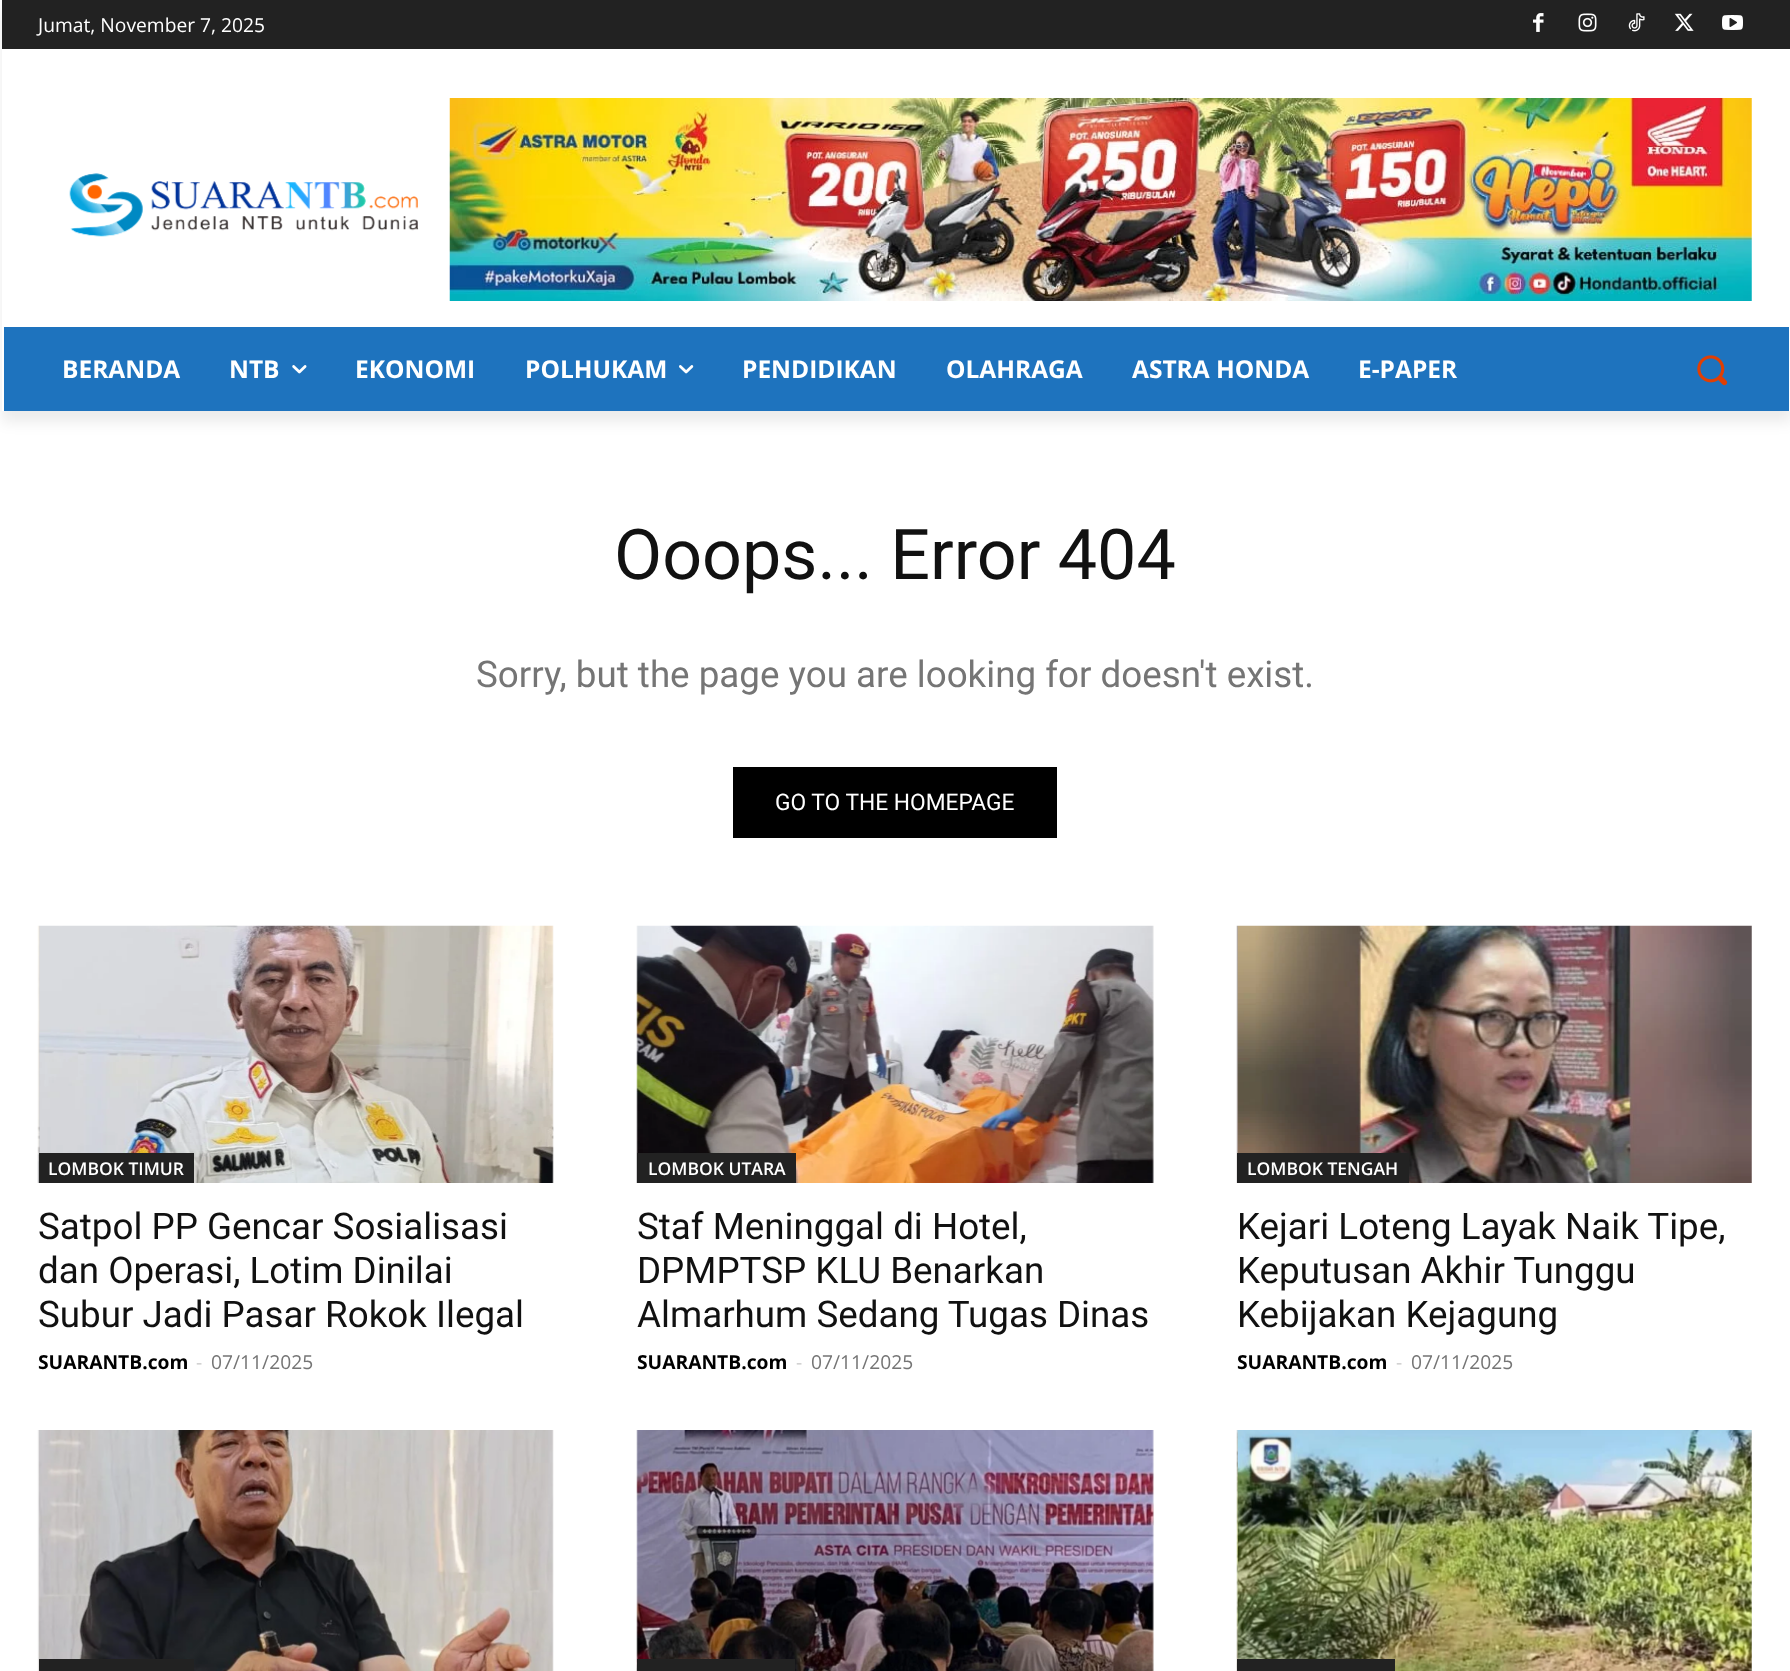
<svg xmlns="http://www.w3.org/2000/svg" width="1790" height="1671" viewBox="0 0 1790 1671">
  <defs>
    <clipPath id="clip1"><path d="M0 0H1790V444H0ZM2 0H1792V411H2Z" clip-rule="evenodd"/></clipPath>
  </defs>
  <rect width="100%" height="100%" fill="rgb(255,255,255)"/>
  <rect x="2" y="0" width="1788" height="49" fill="rgb(34,34,34)"/>
  <image x="1533" y="13" width="11" height="19" href="pic1.png"/>
  <image x="1578" y="13" width="19" height="19" href="pic2.png"/>
  <image x="1628" y="13" width="17" height="19" href="pic3.png"/>
  <image x="1674" y="13" width="20" height="18" href="pic4.png"/>
  <image x="1722" y="15" width="21" height="15" href="pic5.png"/>
  <image x="69" y="173" width="350" height="64" href="pic6.png"/>
  <image x="449" y="98" width="1303" height="203" href="pic7.png"/>
  <rect x="4" y="327" width="1785" height="84" fill="rgb(30,115,190)"/>
  <g clip-path="url(#clip1)">
    <rect x="2" y="11" width="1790" height="411" fill="rgba(0,0,0,0.08)" filter="blur(7px)"/>
  </g>
  <text x="38" y="32" font-family="Open Sans" font-size="19.25" fill="rgb(255,255,255)">Jumat, November 7, 2025</text>
  <g font-family="Open Sans" font-size="24.5" font-weight="bold" fill="rgb(255,255,255)">
    <text x="62" y="378">BERANDA</text>
    <text x="229" y="378">NTB</text>
  </g>
  <image x="292" y="365" width="15" height="9" href="pic8.png"/>
  <g font-family="Open Sans" font-size="24.5" font-weight="bold" fill="rgb(255,255,255)">
    <text x="355" y="378">EKONOMI</text>
    <text x="525" y="378">POLHUKAM</text>
  </g>
  <image x="679" y="365" width="15" height="9" href="pic9.png"/>
  <g font-family="Open Sans" font-size="24.5" font-weight="bold" fill="rgb(255,255,255)">
    <text x="742" y="378">PENDIDIKAN</text>
    <text x="946" y="378">OLAHRAGA</text>
    <text x="1132" y="378">ASTRA HONDA</text>
    <text x="1358" y="378">E-PAPER</text>
  </g>
  <image x="1697" y="355" width="31" height="31" href="pic10.png"/>
  <text x="614" y="579" font-family="Roboto" font-size="70" fill="rgb(17,17,17)">Ooops... Error 404</text>
  <text x="476" y="687" font-family="Roboto" font-size="36.75" fill="rgb(117,117,117)">Sorry, but the page you are looking for doesn't exist.</text>
  <rect x="733" y="767" width="324" height="71" fill="rgb(0,0,0)"/>
  <text x="775" y="810" font-family="Roboto" font-size="22.75" fill="rgb(255,255,255)">GO TO THE HOMEPAGE</text>
  <image x="37" y="925" width="517" height="258" href="pic11.png"/>
  <rect x="39" y="1153" width="155" height="30" fill="rgb(34,34,34)"/>
  <text x="48" y="1175" font-family="Open Sans" font-size="17.5" font-weight="600" fill="rgb(255,255,255)">LOMBOK TIMUR</text>
  <g font-family="Roboto" font-size="36.75" fill="rgb(17,17,17)">
    <text>
      <tspan x="38" y="1239">Satpol PP Gencar Sosialisasi</tspan>
      <tspan x="38" y="1283">dan Operasi, Lotim Dinilai</tspan>
      <tspan x="38" y="1327">Subur Jadi Pasar Rokok Ilegal</tspan>
    </text>
  </g>
  <text x="38" y="1369" font-family="Open Sans" font-size="19.25" font-weight="bold" fill="rgb(0,0,0)">SUARANTB.com</text>
  <text x="196" y="1369" font-family="Open Sans" font-size="19.25" fill="rgb(204,204,204)">-</text>
  <text x="211" y="1369" font-family="Open Sans" font-size="19.25" fill="rgb(117,117,117)">07/11/2025</text>
  <image x="636" y="925" width="518" height="258" href="pic12.png"/>
  <rect x="637" y="1153" width="159" height="30" fill="rgb(34,34,34)"/>
  <text x="648" y="1175" font-family="Open Sans" font-size="17.5" font-weight="600" fill="rgb(255,255,255)">LOMBOK UTARA</text>
  <g font-family="Roboto" font-size="36.75" fill="rgb(17,17,17)">
    <text>
      <tspan x="637" y="1239">Staf Meninggal di Hotel,</tspan>
      <tspan x="637" y="1283">DPMPTSP KLU Benarkan</tspan>
      <tspan x="637" y="1327">Almarhum Sedang Tugas Dinas</tspan>
    </text>
  </g>
  <text x="637" y="1369" font-family="Open Sans" font-size="19.25" font-weight="bold" fill="rgb(0,0,0)">SUARANTB.com</text>
  <text x="796" y="1369" font-family="Open Sans" font-size="19.25" fill="rgb(204,204,204)">-</text>
  <text x="811" y="1369" font-family="Open Sans" font-size="19.25" fill="rgb(117,117,117)">07/11/2025</text>
  <image x="1236" y="925" width="516" height="258" href="pic13.png"/>
  <rect x="1237" y="1153" width="172" height="30" fill="rgb(34,34,34)"/>
  <text x="1247" y="1175" font-family="Open Sans" font-size="17.5" font-weight="600" fill="rgb(255,255,255)">LOMBOK TENGAH</text>
  <g font-family="Roboto" font-size="36.75" fill="rgb(17,17,17)">
    <text>
      <tspan x="1237" y="1239">Kejari Loteng Layak Naik Tipe,</tspan>
      <tspan x="1237" y="1283">Keputusan Akhir Tunggu</tspan>
      <tspan x="1237" y="1327">Kebijakan Kejagung</tspan>
    </text>
  </g>
  <text x="1237" y="1369" font-family="Open Sans" font-size="19.25" font-weight="bold" fill="rgb(0,0,0)">SUARANTB.com</text>
  <text x="1396" y="1369" font-family="Open Sans" font-size="19.25" fill="rgb(204,204,204)">-</text>
  <text x="1411" y="1369" font-family="Open Sans" font-size="19.25" fill="rgb(117,117,117)">07/11/2025</text>
  <image x="37" y="1430" width="517" height="241" href="pic14.png"/>
  <rect x="39" y="1659" width="155" height="12" fill="rgb(34,34,34)"/>
  <image x="636" y="1430" width="518" height="241" href="pic15.png"/>
  <rect x="637" y="1659" width="158" height="12" fill="rgb(34,34,34)"/>
  <image x="1236" y="1430" width="516" height="241" href="pic16.png"/>
  <rect x="1237" y="1659" width="158" height="12" fill="rgb(34,34,34)"/>
</svg>
